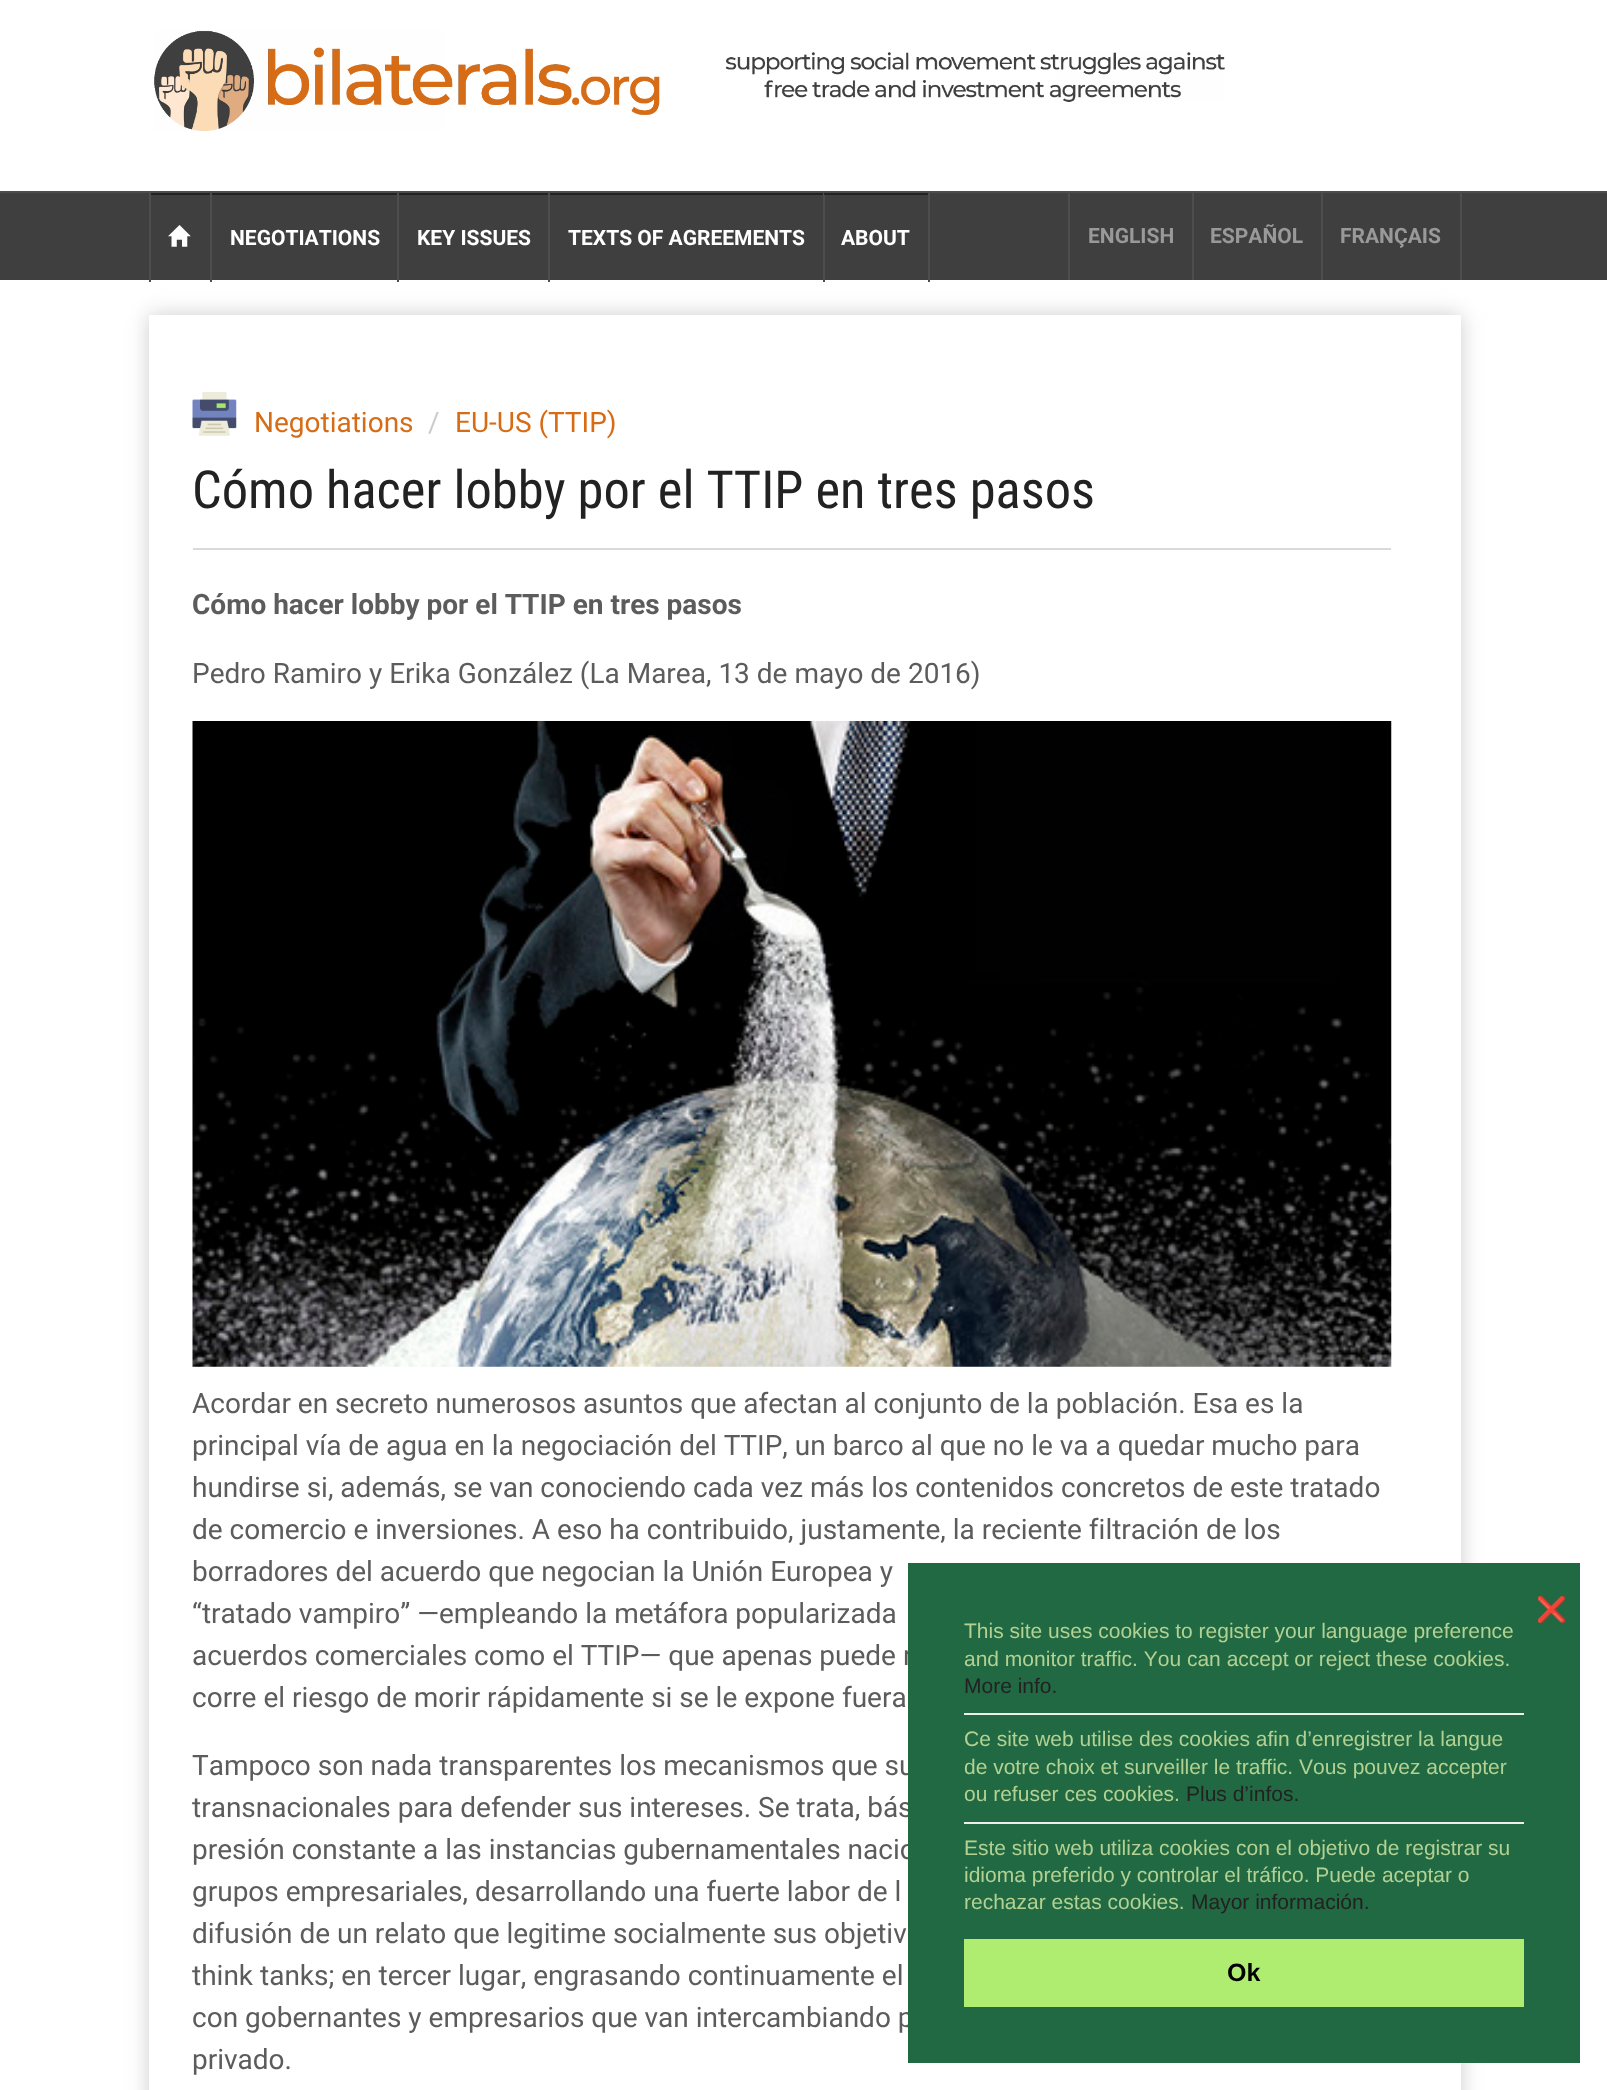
<svg xmlns="http://www.w3.org/2000/svg" width="1607" height="2090" viewBox="0 0 1607 2090">
  <style>*{font-kerning:none!important;font-variant-ligatures:none!important}</style>
  <defs>
    <clipPath id="clip1"><path d="M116 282H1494V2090H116ZM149 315H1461V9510H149Z" clip-rule="evenodd"/></clipPath>
  </defs>
  <rect width="100%" height="100%" fill="rgb(255,255,255)"/>
  <rect x="0" y="191" width="1607" height="2" fill="rgb(77,77,77)"/>
  <image x="154" y="30" width="506" height="101" href="pic1.png"/>
  <image x="725" y="52" width="500" height="50" href="pic2.png"/>
  <rect x="0" y="193" width="1607" height="87" fill="rgb(63,63,63)"/>
  <rect x="149" y="193" width="2" height="89" fill="rgb(77,77,77)"/>
  <rect x="210" y="193" width="2" height="89" fill="rgb(77,77,77)"/>
  <rect x="151" y="193" width="59" height="2" fill="rgb(34,34,34)"/>
  <image x="168" y="225" width="23" height="22" href="pic3.png"/>
  <rect x="397" y="193" width="2" height="89" fill="rgb(77,77,77)"/>
  <rect x="212" y="193" width="185" height="2" fill="rgb(34,34,34)"/>
  <text x="230" y="245" font-family="Roboto" font-size="21" font-weight="bold" fill="rgb(255,255,255)">NEGOTIATIONS</text>
  <rect x="548" y="193" width="2" height="89" fill="rgb(77,77,77)"/>
  <rect x="399" y="193" width="149" height="2" fill="rgb(34,34,34)"/>
  <text x="417" y="245" font-family="Roboto" font-size="21" font-weight="bold" fill="rgb(255,255,255)">KEY ISSUES</text>
  <rect x="823" y="193" width="2" height="89" fill="rgb(77,77,77)"/>
  <rect x="550" y="193" width="273" height="2" fill="rgb(34,34,34)"/>
  <text x="568" y="245" font-family="Roboto" font-size="21" font-weight="bold" fill="rgb(255,255,255)">TEXTS OF AGREEMENTS</text>
  <rect x="928" y="193" width="2" height="89" fill="rgb(77,77,77)"/>
  <rect x="824" y="193" width="104" height="2" fill="rgb(34,34,34)"/>
  <text x="841" y="245" font-family="Roboto" font-size="21" font-weight="bold" fill="rgb(255,255,255)">ABOUT</text>
  <rect x="1192" y="193" width="2" height="87" fill="rgb(77,77,77)"/>
  <rect x="1068" y="193" width="2" height="87" fill="rgb(77,77,77)"/>
  <text x="1088" y="243" font-family="Roboto" font-size="21" font-weight="bold" fill="rgb(153,153,153)">ENGLISH</text>
  <rect x="1321" y="193" width="2" height="87" fill="rgb(77,77,77)"/>
  <text x="1210" y="243" font-family="Roboto" font-size="21" font-weight="bold" fill="rgb(153,153,153)">ESPAÑOL</text>
  <rect x="1460" y="193" width="2" height="87" fill="rgb(77,77,77)"/>
  <text x="1340" y="243" font-family="Roboto" font-size="21" font-weight="bold" fill="rgb(153,153,153)">FRANÇAIS</text>
  <g clip-path="url(#clip1)">
    <rect x="149" y="315" width="1312" height="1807" fill="rgb(204,204,204)" filter="blur(10.5px)"/>
  </g>
  <rect x="193" y="548" width="1198" height="2" fill="rgb(218,218,218)"/>
  <image x="192" y="392" width="45" height="44" href="pic4.png"/>
  <text x="254" y="432" font-family="Roboto" font-size="28" fill="rgb(215,108,22)">Negotiations</text>
  <text x="428" y="432" font-family="Roboto" font-size="28" fill="rgb(204,204,204)">/</text>
  <text x="455" y="432" font-family="Roboto" font-size="28" fill="rgb(215,108,22)">EU-US (TTIP)</text>
  <text x="192" y="508" font-family="Roboto Condensed" font-size="52.5" fill="rgb(34,34,34)">Cómo hacer lobby por el TTIP en tres pasos</text>
  <text x="192" y="614" font-family="Roboto" font-size="28" font-weight="bold" fill="rgb(92,92,92)">Cómo hacer lobby por el TTIP en tres pasos</text>
  <text x="192" y="683" font-family="Roboto" font-size="28" fill="rgb(92,92,92)">Pedro Ramiro y Erika González (La Marea, 13 de mayo de 2016)</text>
  <image x="192" y="721" width="1200" height="646" href="pic5.png"/>
  <g font-family="Roboto" font-size="28" fill="rgb(92,92,92)">
    <text>
      <tspan x="192" y="1413">Acordar en secreto numerosos asuntos que afectan al conjunto de la población. Esa es la</tspan>
      <tspan x="192" y="1455">principal vía de agua en la negociación del TTIP, un barco al que no le va a quedar mucho para</tspan>
      <tspan x="192" y="1497">hundirse si, además, se van conociendo cada vez más los contenidos concretos de este tratado</tspan>
      <tspan x="192" y="1539">de comercio e inversiones. A eso ha contribuido, justamente, la reciente filtración de los</tspan>
      <tspan x="192" y="1581">borradores del acuerdo que negocian la Unión Europea y</tspan>
      <tspan x="192" y="1623">“tratado vampiro” —empleando la metáfora popularizada</tspan>
      <tspan x="192" y="1665">acuerdos comerciales como el TTIP— que apenas puede r</tspan>
      <tspan x="192" y="1707">corre el riesgo de morir rápidamente si se le expone fuera</tspan>
    </text>
    <text>
      <tspan x="192" y="1775">Tampoco son nada transparentes los mecanismos que su</tspan>
      <tspan x="192" y="1817">transnacionales para defender sus intereses. Se trata, bás</tspan>
      <tspan x="192" y="1859">presión constante a las instancias gubernamentales nacio</tspan>
      <tspan x="192" y="1901">grupos empresariales, desarrollando una fuerte labor de l</tspan>
      <tspan x="192" y="1943">difusión de un relato que legitime socialmente sus objetiv</tspan>
      <tspan x="192" y="1985">think tanks; en tercer lugar, engrasando continuamente el</tspan>
      <tspan x="192" y="2027">con gobernantes y empresarios que van intercambiando p</tspan>
      <tspan x="192" y="2069">privado.</tspan>
    </text>
  </g>
  <rect x="908" y="1563" width="672" height="500" fill="rgb(33,105,66)"/>
  <text x="1536" y="1618" font-family="Noto Color Emoji" font-size="25" fill="rgb(164,199,138)">❌</text>
  <g font-family="Liberation Sans" font-size="21" fill="rgb(178,209,146)">
    <text>
      <tspan x="964" y="1638">This site uses cookies to register your language preference</tspan>
      <tspan x="964" y="1666">and monitor traffic. You can accept or reject these cookies.</tspan>
    </text>
  </g>
  <text x="964" y="1693" font-family="Liberation Sans" font-size="21" fill="rgb(34,34,34)">More info.</text>
  <rect x="964" y="1713" width="560" height="2" fill="rgb(238,238,238)"/>
  <g font-family="Liberation Sans" font-size="21" fill="rgb(178,209,146)">
    <text>
      <tspan x="964" y="1746">Ce site web utilise des cookies afin d’enregistrer la langue</tspan>
      <tspan x="964" y="1774">de votre choix et surveiller le traffic. Vous pouvez accepter</tspan>
      <tspan x="964" y="1801">ou refuser ces cookies.</tspan>
    </text>
  </g>
  <text x="1186" y="1801" font-family="Liberation Sans" font-size="21" fill="rgb(34,34,34)">Plus d’infos.</text>
  <rect x="964" y="1822" width="560" height="2" fill="rgb(238,238,238)"/>
  <g font-family="Liberation Sans" font-size="21" fill="rgb(178,209,146)">
    <text>
      <tspan x="964" y="1855">Este sitio web utiliza cookies con el objetivo de registrar su</tspan>
      <tspan x="964" y="1882">idioma preferido y controlar el tráfico. Puede aceptar o</tspan>
      <tspan x="964" y="1909">rechazar estas cookies.</tspan>
    </text>
  </g>
  <text x="1191" y="1909" font-family="Liberation Sans" font-size="21" fill="rgb(34,34,34)">Mayor información.</text>
  <rect x="964" y="1939" width="560" height="68" fill="rgb(175,237,113)"/>
  <text x="1227" y="1981" font-family="Liberation Sans" font-size="25" font-weight="bold" fill="rgb(0,0,0)">Ok</text>
</svg>
